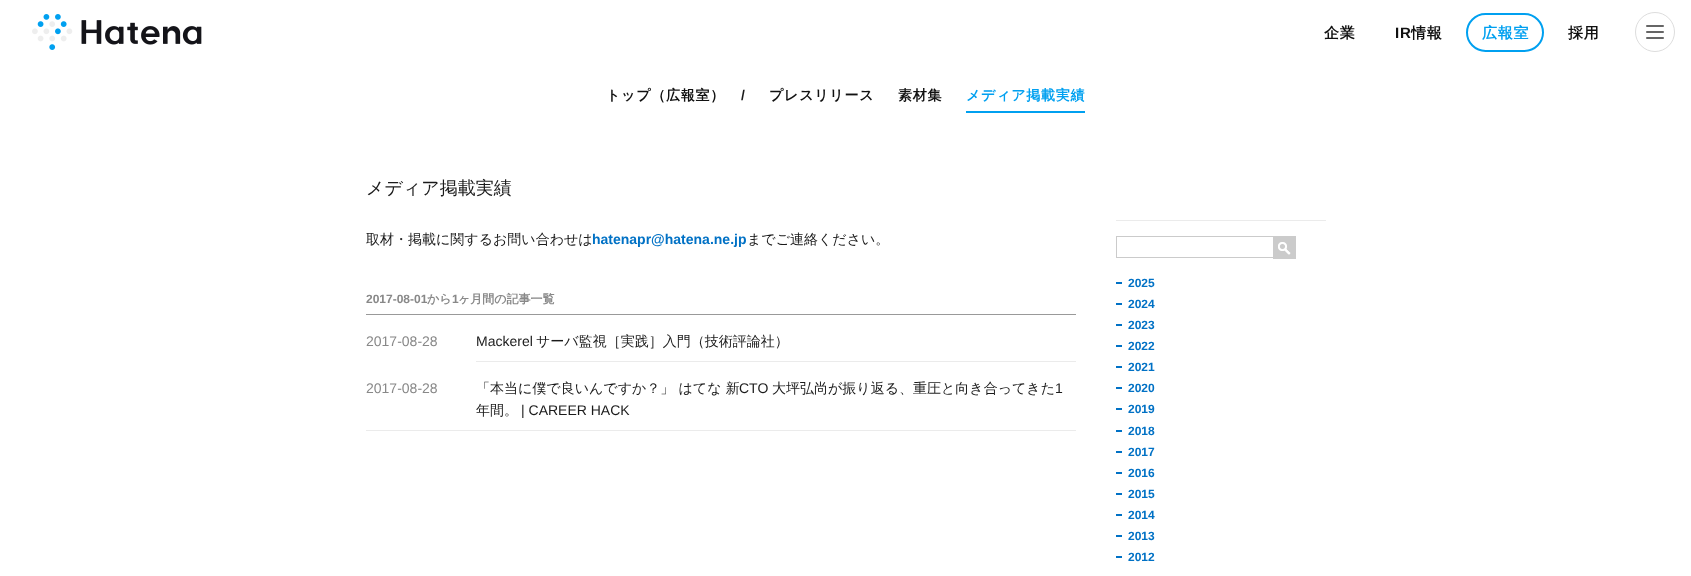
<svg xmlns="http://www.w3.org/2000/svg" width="1691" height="576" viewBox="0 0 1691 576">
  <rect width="100%" height="100%" fill="rgb(255,255,255)"/>
  <image x="32" y="14" width="170" height="36" href="pic1.png"/>
  <text x="1324" y="38" font-family="WenQuanYi Zen Hei" font-size="15" font-weight="bold" letter-spacing="0.75" fill="rgb(17,17,17)">企業</text>
  <text x="1395" y="38" font-family="Liberation Sans" font-size="15" font-weight="bold" letter-spacing="0.75" fill="rgb(17,17,17)">IR</text>
  <text x="1411" y="38" font-family="WenQuanYi Zen Hei" font-size="15" font-weight="bold" letter-spacing="0.75" fill="rgb(17,17,17)">情報</text>
  <rect x="1467" y="14" width="76" height="37" rx="18.5" fill="none" stroke="rgb(0,160,240)" stroke-width="2"/>
  <text x="1482" y="38" font-family="WenQuanYi Zen Hei" font-size="15" font-weight="bold" letter-spacing="0.75" fill="rgb(0,160,240)">広報室</text>
  <text x="1568" y="38" font-family="WenQuanYi Zen Hei" font-size="15" font-weight="bold" letter-spacing="0.75" fill="rgb(17,17,17)">採用</text>
  <circle cx="1655" cy="32" r="19.5" fill="none" stroke="rgb(221,221,221)"/>
  <image x="1646" y="25" width="18" height="14" href="pic2.png"/>
  <text x="606" y="100" font-family="WenQuanYi Zen Hei" font-size="14" font-weight="bold" letter-spacing="0.75" fill="rgb(17,17,17)">トップ（広報室）</text>
  <text x="741" y="100" font-family="Liberation Sans" font-size="14" font-weight="bold" letter-spacing="0.75" fill="rgb(26,26,26)">/</text>
  <g font-family="WenQuanYi Zen Hei" font-size="14" font-weight="bold" letter-spacing="0.75" fill="rgb(17,17,17)">
    <text x="769" y="100">プレスリリース</text>
    <text x="898" y="100">素材集</text>
  </g>
  <text x="966" y="100" font-family="WenQuanYi Zen Hei" font-size="14" font-weight="bold" letter-spacing="0.75" fill="rgb(0,160,240)">メディア掲載実績</text>
  <rect x="966" y="111" width="119" height="2" fill="rgb(0,160,240)"/>
  <text x="366" y="194" font-family="WenQuanYi Zen Hei" font-size="18" font-weight="500" fill="rgb(26,26,26)">メディア掲載実績</text>
  <text x="366" y="244" font-family="WenQuanYi Zen Hei" font-size="14" font-weight="500" fill="rgb(26,26,26)">取材・掲載に関するお問い合わせは</text>
  <text x="592" y="244" font-family="Liberation Sans" font-size="14" font-weight="bold" fill="rgb(0,113,197)">hatenapr@hatena.ne.jp</text>
  <text x="747" y="244" font-family="WenQuanYi Zen Hei" font-size="14" font-weight="500" fill="rgb(26,26,26)">までご連絡ください。</text>
  <text x="366" y="303" font-family="Liberation Sans" font-size="12" font-weight="bold" fill="rgb(136,136,136)">2017-08-01</text>
  <text x="427" y="303" font-family="WenQuanYi Zen Hei" font-size="12" font-weight="bold" fill="rgb(136,136,136)">から</text>
  <text x="452" y="303" font-family="Liberation Sans" font-size="12" font-weight="bold" fill="rgb(136,136,136)">1</text>
  <text x="458" y="303" font-family="WenQuanYi Zen Hei" font-size="12" font-weight="bold" fill="rgb(136,136,136)">ヶ月間の記事一覧</text>
  <rect x="366" y="314" width="710" height="1" fill="rgb(153,153,153)"/>
  <rect x="366" y="430" width="710" height="1" fill="rgb(235,235,235)"/>
  <text x="366" y="346" font-family="Liberation Sans" font-size="14" fill="rgb(136,136,136)">2017-08-28</text>
  <rect x="476" y="361" width="600" height="1" fill="rgb(235,235,235)"/>
  <text x="476" y="346" font-family="Liberation Sans" font-size="14" fill="rgb(26,26,26)">Mackerel</text>
  <text x="536" y="346" font-family="WenQuanYi Zen Hei" font-size="14" font-weight="500" fill="rgb(26,26,26)">サーバ監視［実践］入門（技術評論社）</text>
  <text x="366" y="393" font-family="Liberation Sans" font-size="14" fill="rgb(136,136,136)">2017-08-28</text>
  <text x="476" y="393" font-family="WenQuanYi Zen Hei" font-size="14" font-weight="500" fill="rgb(26,26,26)">「本当に僕で良いんですか？」 はてな 新</text>
  <text x="739" y="393" font-family="Liberation Sans" font-size="14" fill="rgb(26,26,26)">CTO</text>
  <text x="772" y="393" font-family="WenQuanYi Zen Hei" font-size="14" font-weight="500" fill="rgb(26,26,26)">大坪弘尚が振り返る、重圧と向き合ってきた</text>
  <text x="1055" y="393" font-family="Liberation Sans" font-size="14" fill="rgb(26,26,26)">1</text>
  <text x="476" y="415" font-family="WenQuanYi Zen Hei" font-size="14" font-weight="500" fill="rgb(26,26,26)">年間。</text>
  <text x="521" y="415" font-family="Liberation Sans" font-size="14" fill="rgb(26,26,26)">| CAREER HACK</text>
  <rect x="1116" y="220" width="210" height="1" fill="rgb(235,235,235)"/>
  <rect x="1116.5" y="236.5" width="157" height="21" fill="none" stroke="rgb(203,203,203)"/>
  <rect x="1273" y="236" width="23" height="23" fill="rgb(203,203,203)"/>
  <image x="1278" y="242" width="13" height="13" href="pic3.png"/>
  <rect x="1116" y="282" width="6" height="2" fill="rgb(0,113,197)"/>
  <text x="1128" y="287" font-family="Liberation Sans" font-size="12" font-weight="bold" fill="rgb(0,113,197)">2025</text>
  <rect x="1116" y="303" width="6" height="2" fill="rgb(0,113,197)"/>
  <text x="1128" y="308" font-family="Liberation Sans" font-size="12" font-weight="bold" fill="rgb(0,113,197)">2024</text>
  <rect x="1116" y="324" width="6" height="2" fill="rgb(0,113,197)"/>
  <text x="1128" y="329" font-family="Liberation Sans" font-size="12" font-weight="bold" fill="rgb(0,113,197)">2023</text>
  <rect x="1116" y="345" width="6" height="2" fill="rgb(0,113,197)"/>
  <text x="1128" y="350" font-family="Liberation Sans" font-size="12" font-weight="bold" fill="rgb(0,113,197)">2022</text>
  <rect x="1116" y="366" width="6" height="2" fill="rgb(0,113,197)"/>
  <text x="1128" y="371" font-family="Liberation Sans" font-size="12" font-weight="bold" fill="rgb(0,113,197)">2021</text>
  <rect x="1116" y="387" width="6" height="2" fill="rgb(0,113,197)"/>
  <text x="1128" y="392" font-family="Liberation Sans" font-size="12" font-weight="bold" fill="rgb(0,113,197)">2020</text>
  <rect x="1116" y="408" width="6" height="2" fill="rgb(0,113,197)"/>
  <text x="1128" y="413" font-family="Liberation Sans" font-size="12" font-weight="bold" fill="rgb(0,113,197)">2019</text>
  <rect x="1116" y="430" width="6" height="2" fill="rgb(0,113,197)"/>
  <text x="1128" y="435" font-family="Liberation Sans" font-size="12" font-weight="bold" fill="rgb(0,113,197)">2018</text>
  <rect x="1116" y="451" width="6" height="2" fill="rgb(0,113,197)"/>
  <text x="1128" y="456" font-family="Liberation Sans" font-size="12" font-weight="bold" fill="rgb(0,113,197)">2017</text>
  <rect x="1116" y="472" width="6" height="2" fill="rgb(0,113,197)"/>
  <text x="1128" y="477" font-family="Liberation Sans" font-size="12" font-weight="bold" fill="rgb(0,113,197)">2016</text>
  <rect x="1116" y="493" width="6" height="2" fill="rgb(0,113,197)"/>
  <text x="1128" y="498" font-family="Liberation Sans" font-size="12" font-weight="bold" fill="rgb(0,113,197)">2015</text>
  <rect x="1116" y="514" width="6" height="2" fill="rgb(0,113,197)"/>
  <text x="1128" y="519" font-family="Liberation Sans" font-size="12" font-weight="bold" fill="rgb(0,113,197)">2014</text>
  <rect x="1116" y="535" width="6" height="2" fill="rgb(0,113,197)"/>
  <text x="1128" y="540" font-family="Liberation Sans" font-size="12" font-weight="bold" fill="rgb(0,113,197)">2013</text>
  <rect x="1116" y="556" width="6" height="2" fill="rgb(0,113,197)"/>
  <text x="1128" y="561" font-family="Liberation Sans" font-size="12" font-weight="bold" fill="rgb(0,113,197)">2012</text>
</svg>
